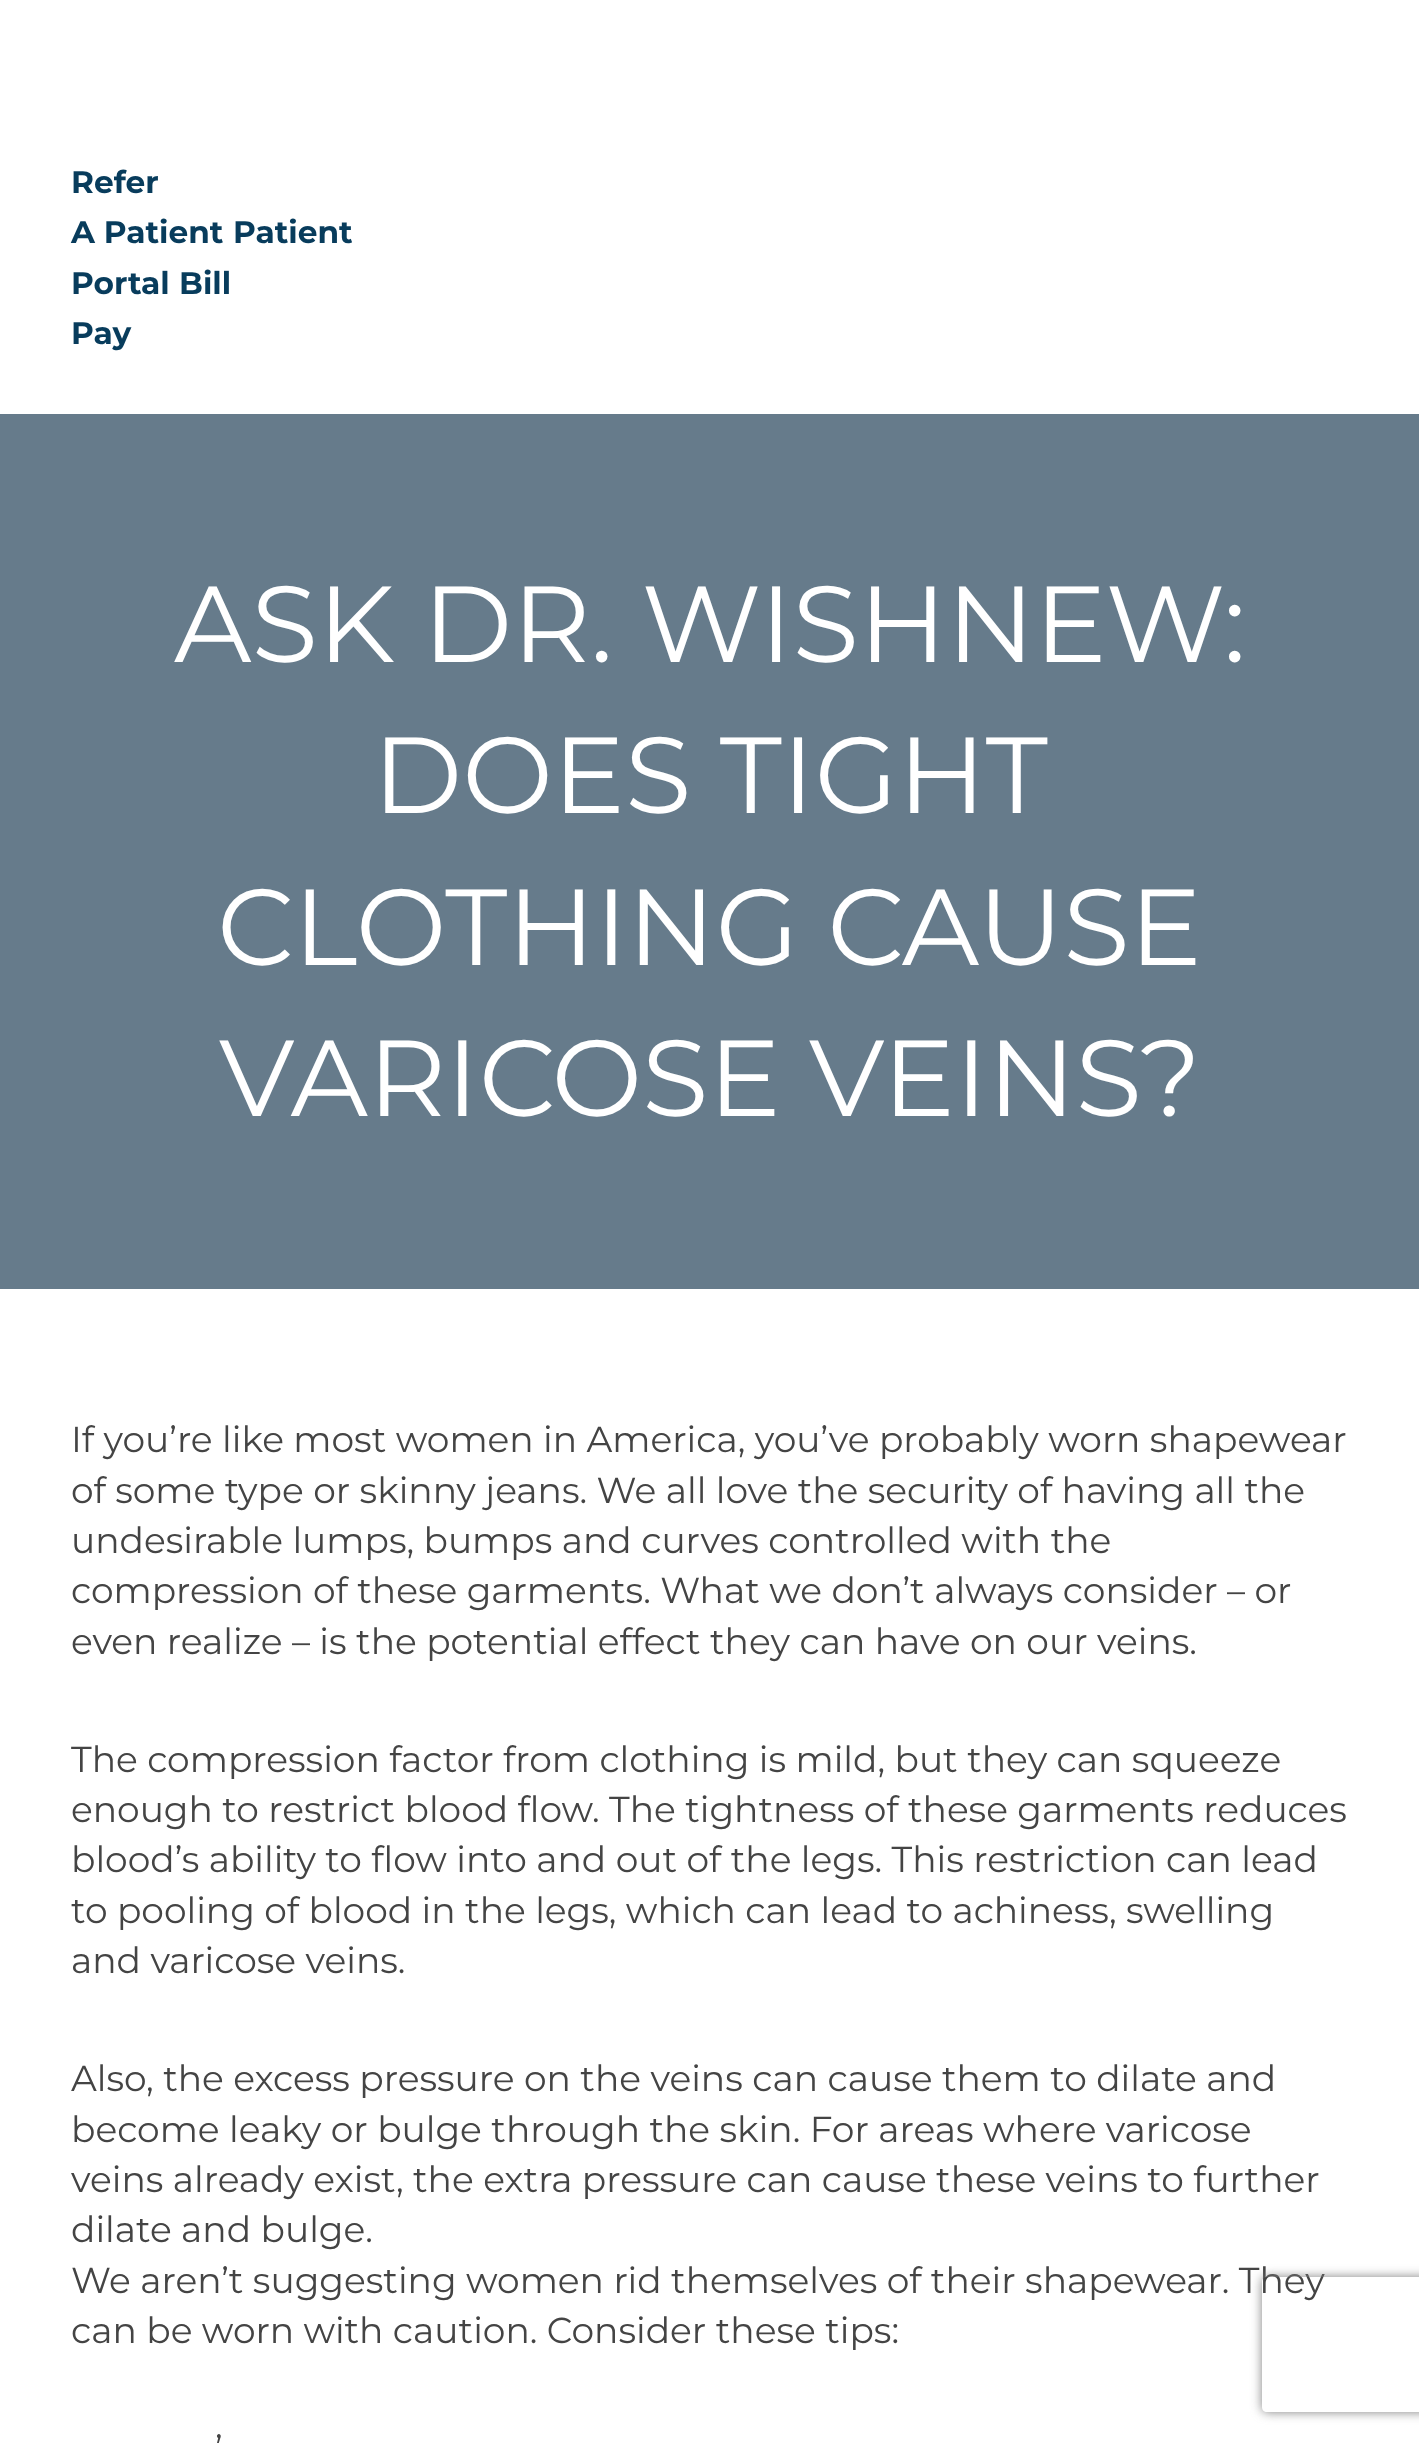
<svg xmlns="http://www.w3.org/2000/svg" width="1419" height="2443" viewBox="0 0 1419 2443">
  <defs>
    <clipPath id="clip1"><path d="M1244 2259H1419V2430H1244ZM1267 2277H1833C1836 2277 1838 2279 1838 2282V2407C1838 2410 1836 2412 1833 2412H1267C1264 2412 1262 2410 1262 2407V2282C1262 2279 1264 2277 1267 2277Z" clip-rule="evenodd"/></clipPath>
  </defs>
  <rect width="100%" height="100%" fill="rgb(255,255,255)"/>
  <g font-family="Montserrat" font-size="31.25" font-weight="bold" fill="rgb(8,60,92)">
    <text>
      <tspan x="71" y="193">Refer</tspan>
      <tspan x="71" y="243">A Patient</tspan>
    </text>
    <text x="233" y="243">Patient</text>
    <text x="71" y="294">Portal</text>
    <text x="179" y="294">Bill</text>
    <text x="71" y="344">Pay</text>
  </g>
  <rect x="0" y="414" width="1419" height="875" fill="rgb(102,123,139)"/>
  <g font-family="Montserrat" font-size="108" fill="rgb(255,255,255)">
    <text x="174" y="662">ASK DR. WISHNEW:</text>
    <text x="373" y="813">DOES TIGHT</text>
    <text x="217" y="965">CLOTHING CAUSE</text>
    <text x="219" y="1116">VARICOSE VEINS?</text>
  </g>
  <g font-family="Montserrat" font-size="36" fill="rgb(68,68,68)">
    <text>
      <tspan x="71" y="1452">If you’re like most women in America, you’ve probably worn shapewear</tspan>
      <tspan x="71" y="1503">of some type or skinny jeans. We all love the security of having all the</tspan>
      <tspan x="71" y="1553">undesirable lumps, bumps and curves controlled with the</tspan>
      <tspan x="71" y="1603">compression of these garments. What we don’t always consider – or</tspan>
      <tspan x="71" y="1654">even realize – is the potential effect they can have on our veins.</tspan>
    </text>
    <text>
      <tspan x="71" y="1772">The compression factor from clothing is mild, but they can squeeze</tspan>
      <tspan x="71" y="1822">enough to restrict blood flow. The tightness of these garments reduces</tspan>
      <tspan x="71" y="1872">blood’s ability to flow into and out of the legs. This restriction can lead</tspan>
      <tspan x="71" y="1923">to pooling of blood in the legs, which can lead to achiness, swelling</tspan>
      <tspan x="71" y="1973">and varicose veins.</tspan>
    </text>
    <text>
      <tspan x="71" y="2091">Also, the excess pressure on the veins can cause them to dilate and</tspan>
      <tspan x="71" y="2142">become leaky or bulge through the skin. For areas where varicose</tspan>
      <tspan x="71" y="2192">veins already exist, the extra pressure can cause these veins to further</tspan>
      <tspan x="71" y="2242">dilate and bulge.</tspan>
      <tspan x="71" y="2293">We aren’t suggesting women rid themselves of their shapewear. They</tspan>
      <tspan x="71" y="2343">can be worn with caution. Consider these tips:</tspan>
    </text>
    <text x="215" y="2461">’</text>
  </g>
  <g clip-path="url(#clip1)">
    <rect x="1262" y="2277" width="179" height="135" rx="5" fill="rgb(128,128,128)" filter="blur(5.5px)"/>
  </g>
</svg>
